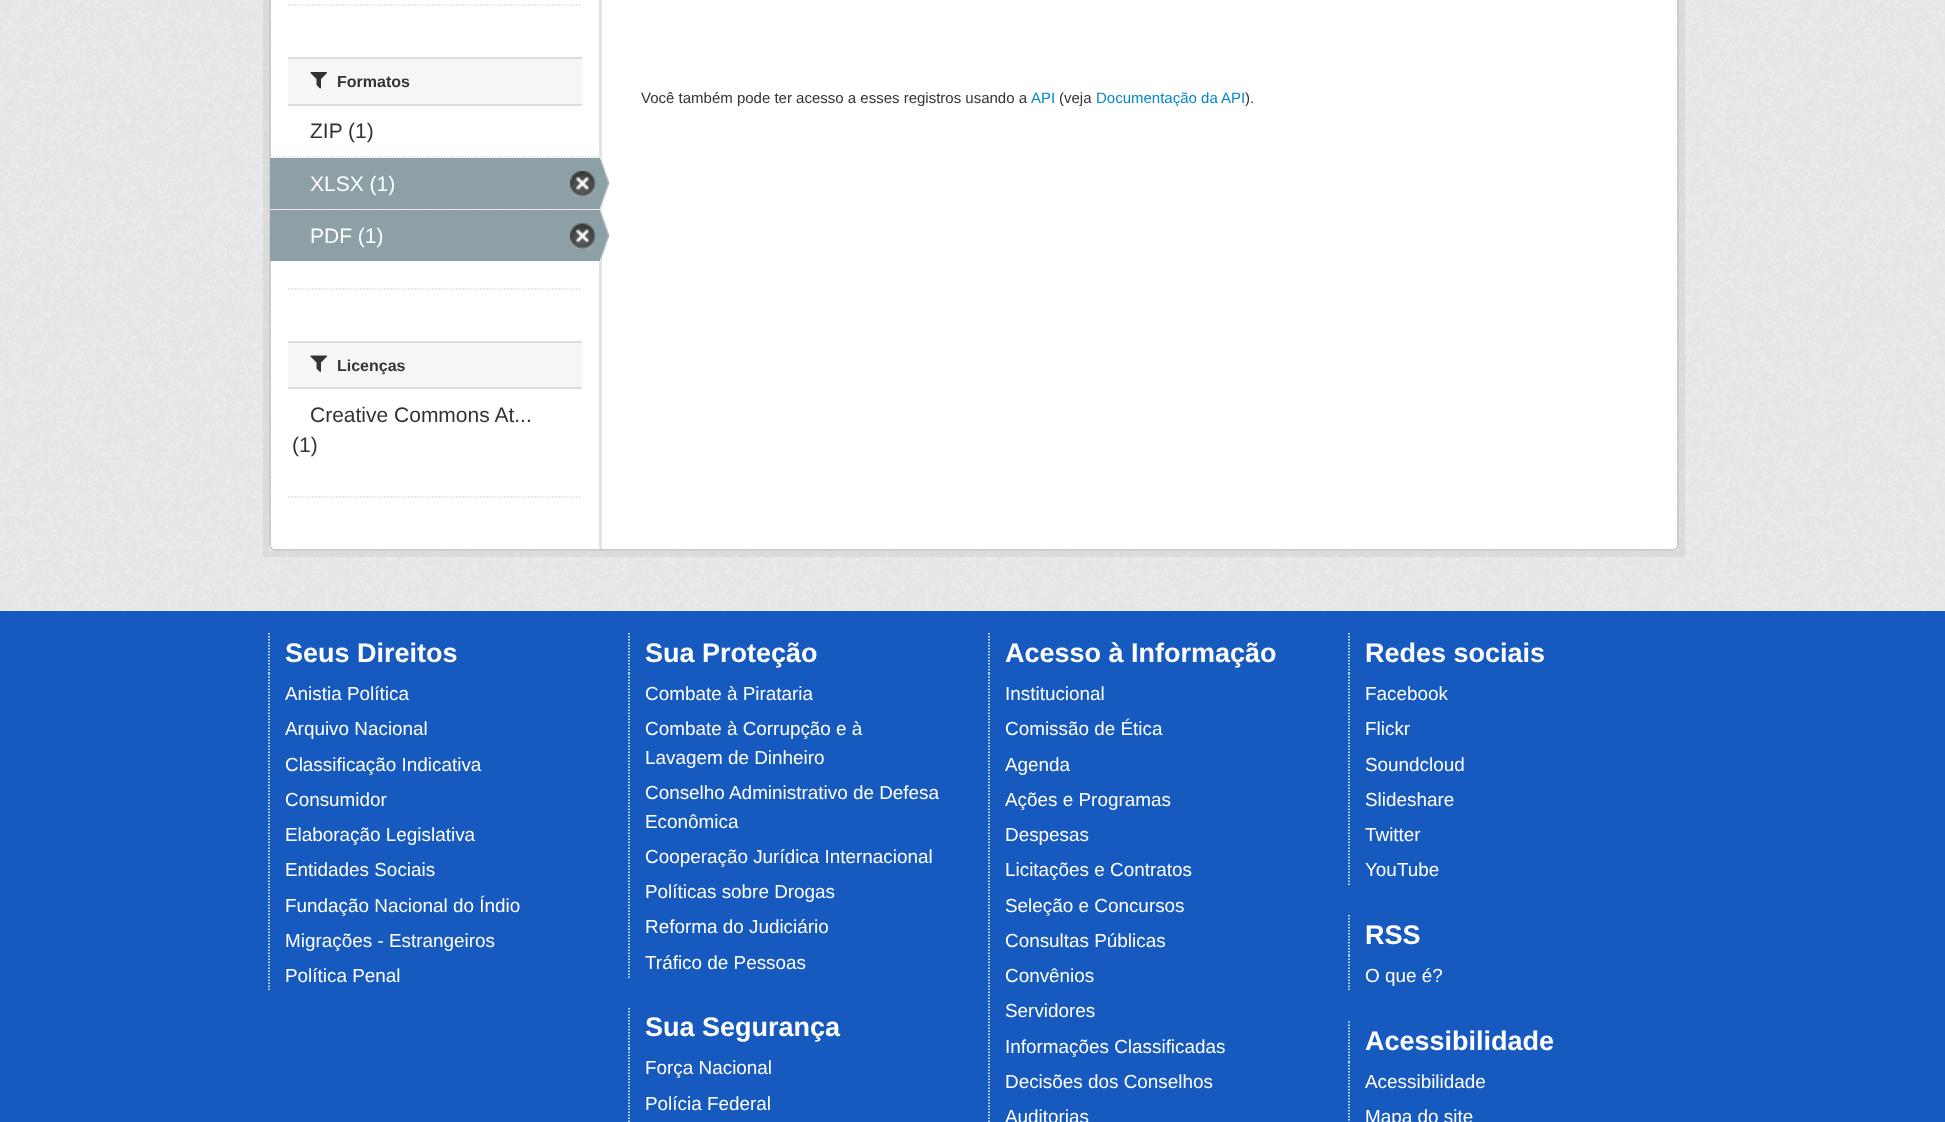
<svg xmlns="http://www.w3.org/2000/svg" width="1945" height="1122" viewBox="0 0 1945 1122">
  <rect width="100%" height="100%" fill="rgb(238,238,238)"/>
  <image x="0" y="0" width="1945" height="610" href="pic1.png"/>
  <rect x="266" y="-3" width="1416" height="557" fill="none" stroke="rgba(0,0,0,0.05)" stroke-width="6"/>
  <rect x="269" y="-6" width="1410" height="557" rx="6" fill="rgb(255,255,255)"/>
  <rect x="599" y="0" width="3" height="551" fill="rgb(226,226,226)"/>
  <rect x="270" y="-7" width="1408" height="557" rx="5" fill="none" stroke="rgb(204,204,204)" stroke-width="2"/>
  <path d="M288 5H582" fill="none" stroke="rgb(221,221,221)" stroke-width="1.5" stroke-dasharray="1.5 1.5"/>
  <rect x="288" y="59" width="294" height="45" fill="rgb(246,246,246)"/>
  <rect x="288" y="57" width="294" height="2" fill="rgb(221,221,221)"/>
  <rect x="288" y="104" width="294" height="2" fill="rgb(221,221,221)"/>
  <image x="310" y="72" width="17" height="17" href="pic2.png"/>
  <text x="337" y="87" font-family="Liberation Sans" font-size="16" font-weight="bold" fill="rgb(51,51,51)">Formatos</text>
  <path d="M270 157H600" fill="none" stroke="rgb(221,221,221)" stroke-width="1.5" stroke-dasharray="1.5 1.5"/>
  <text x="310" y="138" font-family="Liberation Sans" font-size="21" fill="rgb(51,51,51)">ZIP (1)</text>
  <rect x="270" y="209" width="330" height="1" fill="rgb(246,246,246)"/>
  <path d="M270 209H600" fill="none" stroke="rgb(221,221,221)" stroke-width="1.5" stroke-dasharray="1.5 1.5"/>
  <rect x="270" y="158" width="330" height="51" fill="rgb(140,160,166)"/>
  <text x="310" y="191" font-family="Liberation Sans" font-size="21" fill="rgb(255,255,255)">XLSX (1)</text>
  <image x="570" y="171" width="26" height="26" href="pic3.png"/>
  <image x="600" y="157" width="9" height="52" href="pic4.png"/>
  <rect x="270" y="210" width="330" height="51" fill="rgb(140,160,166)"/>
  <text x="310" y="243" font-family="Liberation Sans" font-size="21" fill="rgb(255,255,255)">PDF (1)</text>
  <image x="570" y="223" width="26" height="26" href="pic5.png"/>
  <image x="600" y="210" width="9" height="51" href="pic6.png"/>
  <path d="M288 289H582" fill="none" stroke="rgb(221,221,221)" stroke-width="1.5" stroke-dasharray="1.5 1.5"/>
  <rect x="288" y="343" width="294" height="44" fill="rgb(246,246,246)"/>
  <rect x="288" y="341" width="294" height="2" fill="rgb(221,221,221)"/>
  <rect x="288" y="387" width="294" height="2" fill="rgb(221,221,221)"/>
  <image x="310" y="355" width="17" height="17" href="pic7.png"/>
  <text x="337" y="371" font-family="Liberation Sans" font-size="16" font-weight="bold" fill="rgb(51,51,51)">Licenças</text>
  <g font-family="Liberation Sans" font-size="21" fill="rgb(51,51,51)">
    <text x="310" y="422">Creative Commons At...</text>
    <text x="292" y="452">(1)</text>
  </g>
  <path d="M288 497H582" fill="none" stroke="rgb(221,221,221)" stroke-width="1.5" stroke-dasharray="1.5 1.5"/>
  <text x="641" y="103" font-family="Liberation Sans" font-size="15" fill="rgb(51,51,51)">Você também pode ter acesso a esses registros usando a</text>
  <text x="1031" y="103" font-family="Liberation Sans" font-size="15" fill="rgb(0,136,204)">API</text>
  <text x="1059" y="103" font-family="Liberation Sans" font-size="15" fill="rgb(51,51,51)">(veja</text>
  <text x="1096" y="103" font-family="Liberation Sans" font-size="15" fill="rgb(0,136,204)">Documentação da API</text>
  <text x="1245" y="103" font-family="Liberation Sans" font-size="15" fill="rgb(51,51,51)">).</text>
  <rect x="0" y="611" width="1945" height="511" fill="rgb(22,89,191)"/>
  <path d="M269 633V673.5" fill="none" stroke="rgb(255,255,255)" stroke-width="1.5" stroke-dasharray="1.5 1.5"/>
  <text x="285" y="662" font-family="Liberation Sans" font-size="27" font-weight="bold" fill="rgb(255,255,255)">Seus Direitos</text>
  <path d="M269 673.5V991.5" fill="none" stroke="rgb(255,255,255)" stroke-width="1.5" stroke-dasharray="1.5 1.5"/>
  <g font-family="Liberation Sans" font-size="18.9" fill="rgb(255,255,255)">
    <text>
      <tspan x="285" y="700">Anistia Política</tspan>
      <tspan x="285" y="735">Arquivo Nacional</tspan>
      <tspan x="285" y="771">Classificação Indicativa</tspan>
      <tspan x="285" y="806">Consumidor</tspan>
      <tspan x="285" y="841">Elaboração Legislativa</tspan>
      <tspan x="285" y="876">Entidades Sociais</tspan>
      <tspan x="285" y="912">Fundação Nacional do Índio</tspan>
      <tspan x="285" y="947">Migrações - Estrangeiros</tspan>
      <tspan x="285" y="982">Política Penal</tspan>
    </text>
  </g>
  <path d="M629 633V673.5" fill="none" stroke="rgb(255,255,255)" stroke-width="1.5" stroke-dasharray="1.5 1.5"/>
  <text x="645" y="662" font-family="Liberation Sans" font-size="27" font-weight="bold" fill="rgb(255,255,255)">Sua Proteção</text>
  <path d="M629 673.5V978" fill="none" stroke="rgb(255,255,255)" stroke-width="1.5" stroke-dasharray="1.5 1.5"/>
  <g font-family="Liberation Sans" font-size="18.9" fill="rgb(255,255,255)">
    <text>
      <tspan x="645" y="700">Combate à Pirataria</tspan>
      <tspan x="645" y="735">Combate à Corrupção e à</tspan>
      <tspan x="645" y="764">Lavagem de Dinheiro</tspan>
      <tspan x="645" y="799">Conselho Administrativo de Defesa</tspan>
      <tspan x="645" y="828">Econômica</tspan>
      <tspan x="645" y="863">Cooperação Jurídica Internacional</tspan>
      <tspan x="645" y="898">Políticas sobre Drogas</tspan>
      <tspan x="645" y="933">Reforma do Judiciário</tspan>
      <tspan x="645" y="969">Tráfico de Pessoas</tspan>
    </text>
  </g>
  <path d="M629 1008V1048.5" fill="none" stroke="rgb(255,255,255)" stroke-width="1.5" stroke-dasharray="1.5 1.5"/>
  <text x="645" y="1036" font-family="Liberation Sans" font-size="27" font-weight="bold" fill="rgb(255,255,255)">Sua Segurança</text>
  <path d="M629 1048.5V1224" fill="none" stroke="rgb(255,255,255)" stroke-width="1.5" stroke-dasharray="1.5 1.5"/>
  <g font-family="Liberation Sans" font-size="18.9" fill="rgb(255,255,255)">
    <text>
      <tspan x="645" y="1074">Força Nacional</tspan>
      <tspan x="645" y="1110">Polícia Federal</tspan>
    </text>
  </g>
  <path d="M989 633V673.5" fill="none" stroke="rgb(255,255,255)" stroke-width="1.5" stroke-dasharray="1.5 1.5"/>
  <text x="1005" y="662" font-family="Liberation Sans" font-size="27" font-weight="bold" fill="rgb(255,255,255)">Acesso à Informação</text>
  <path d="M989 673.5V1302" fill="none" stroke="rgb(255,255,255)" stroke-width="1.5" stroke-dasharray="1.5 1.5"/>
  <g font-family="Liberation Sans" font-size="18.9" fill="rgb(255,255,255)">
    <text>
      <tspan x="1005" y="700">Institucional</tspan>
      <tspan x="1005" y="735">Comissão de Ética</tspan>
      <tspan x="1005" y="771">Agenda</tspan>
      <tspan x="1005" y="806">Ações e Programas</tspan>
      <tspan x="1005" y="841">Despesas</tspan>
      <tspan x="1005" y="876">Licitações e Contratos</tspan>
      <tspan x="1005" y="912">Seleção e Concursos</tspan>
      <tspan x="1005" y="947">Consultas Públicas</tspan>
      <tspan x="1005" y="982">Convênios</tspan>
      <tspan x="1005" y="1017">Servidores</tspan>
      <tspan x="1005" y="1053">Informações Classificadas</tspan>
      <tspan x="1005" y="1088">Decisões dos Conselhos</tspan>
      <tspan x="1005" y="1123">Auditorias</tspan>
    </text>
  </g>
  <path d="M1349 633V673.5" fill="none" stroke="rgb(255,255,255)" stroke-width="1.5" stroke-dasharray="1.5 1.5"/>
  <text x="1365" y="662" font-family="Liberation Sans" font-size="27" font-weight="bold" fill="rgb(255,255,255)">Redes sociais</text>
  <path d="M1349 673.5V885" fill="none" stroke="rgb(255,255,255)" stroke-width="1.5" stroke-dasharray="1.5 1.5"/>
  <g font-family="Liberation Sans" font-size="18.9" fill="rgb(255,255,255)">
    <text>
      <tspan x="1365" y="700">Facebook</tspan>
      <tspan x="1365" y="735">Flickr</tspan>
      <tspan x="1365" y="771">Soundcloud</tspan>
      <tspan x="1365" y="806">Slideshare</tspan>
      <tspan x="1365" y="841">Twitter</tspan>
      <tspan x="1365" y="876">YouTube</tspan>
    </text>
  </g>
  <path d="M1349 915V955.5" fill="none" stroke="rgb(255,255,255)" stroke-width="1.5" stroke-dasharray="1.5 1.5"/>
  <text x="1365" y="944" font-family="Liberation Sans" font-size="27" font-weight="bold" fill="rgb(255,255,255)">RSS</text>
  <path d="M1349 955.5V991.5" fill="none" stroke="rgb(255,255,255)" stroke-width="1.5" stroke-dasharray="1.5 1.5"/>
  <text x="1365" y="982" font-family="Liberation Sans" font-size="18.9" fill="rgb(255,255,255)">O que é?</text>
  <path d="M1349 1021.5V1062" fill="none" stroke="rgb(255,255,255)" stroke-width="1.5" stroke-dasharray="1.5 1.5"/>
  <text x="1365" y="1050" font-family="Liberation Sans" font-size="27" font-weight="bold" fill="rgb(255,255,255)">Acessibilidade</text>
  <path d="M1349 1062V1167" fill="none" stroke="rgb(255,255,255)" stroke-width="1.5" stroke-dasharray="1.5 1.5"/>
  <g font-family="Liberation Sans" font-size="18.9" fill="rgb(255,255,255)">
    <text>
      <tspan x="1365" y="1088">Acessibilidade</tspan>
      <tspan x="1365" y="1123">Mapa do site</tspan>
    </text>
  </g>
</svg>
